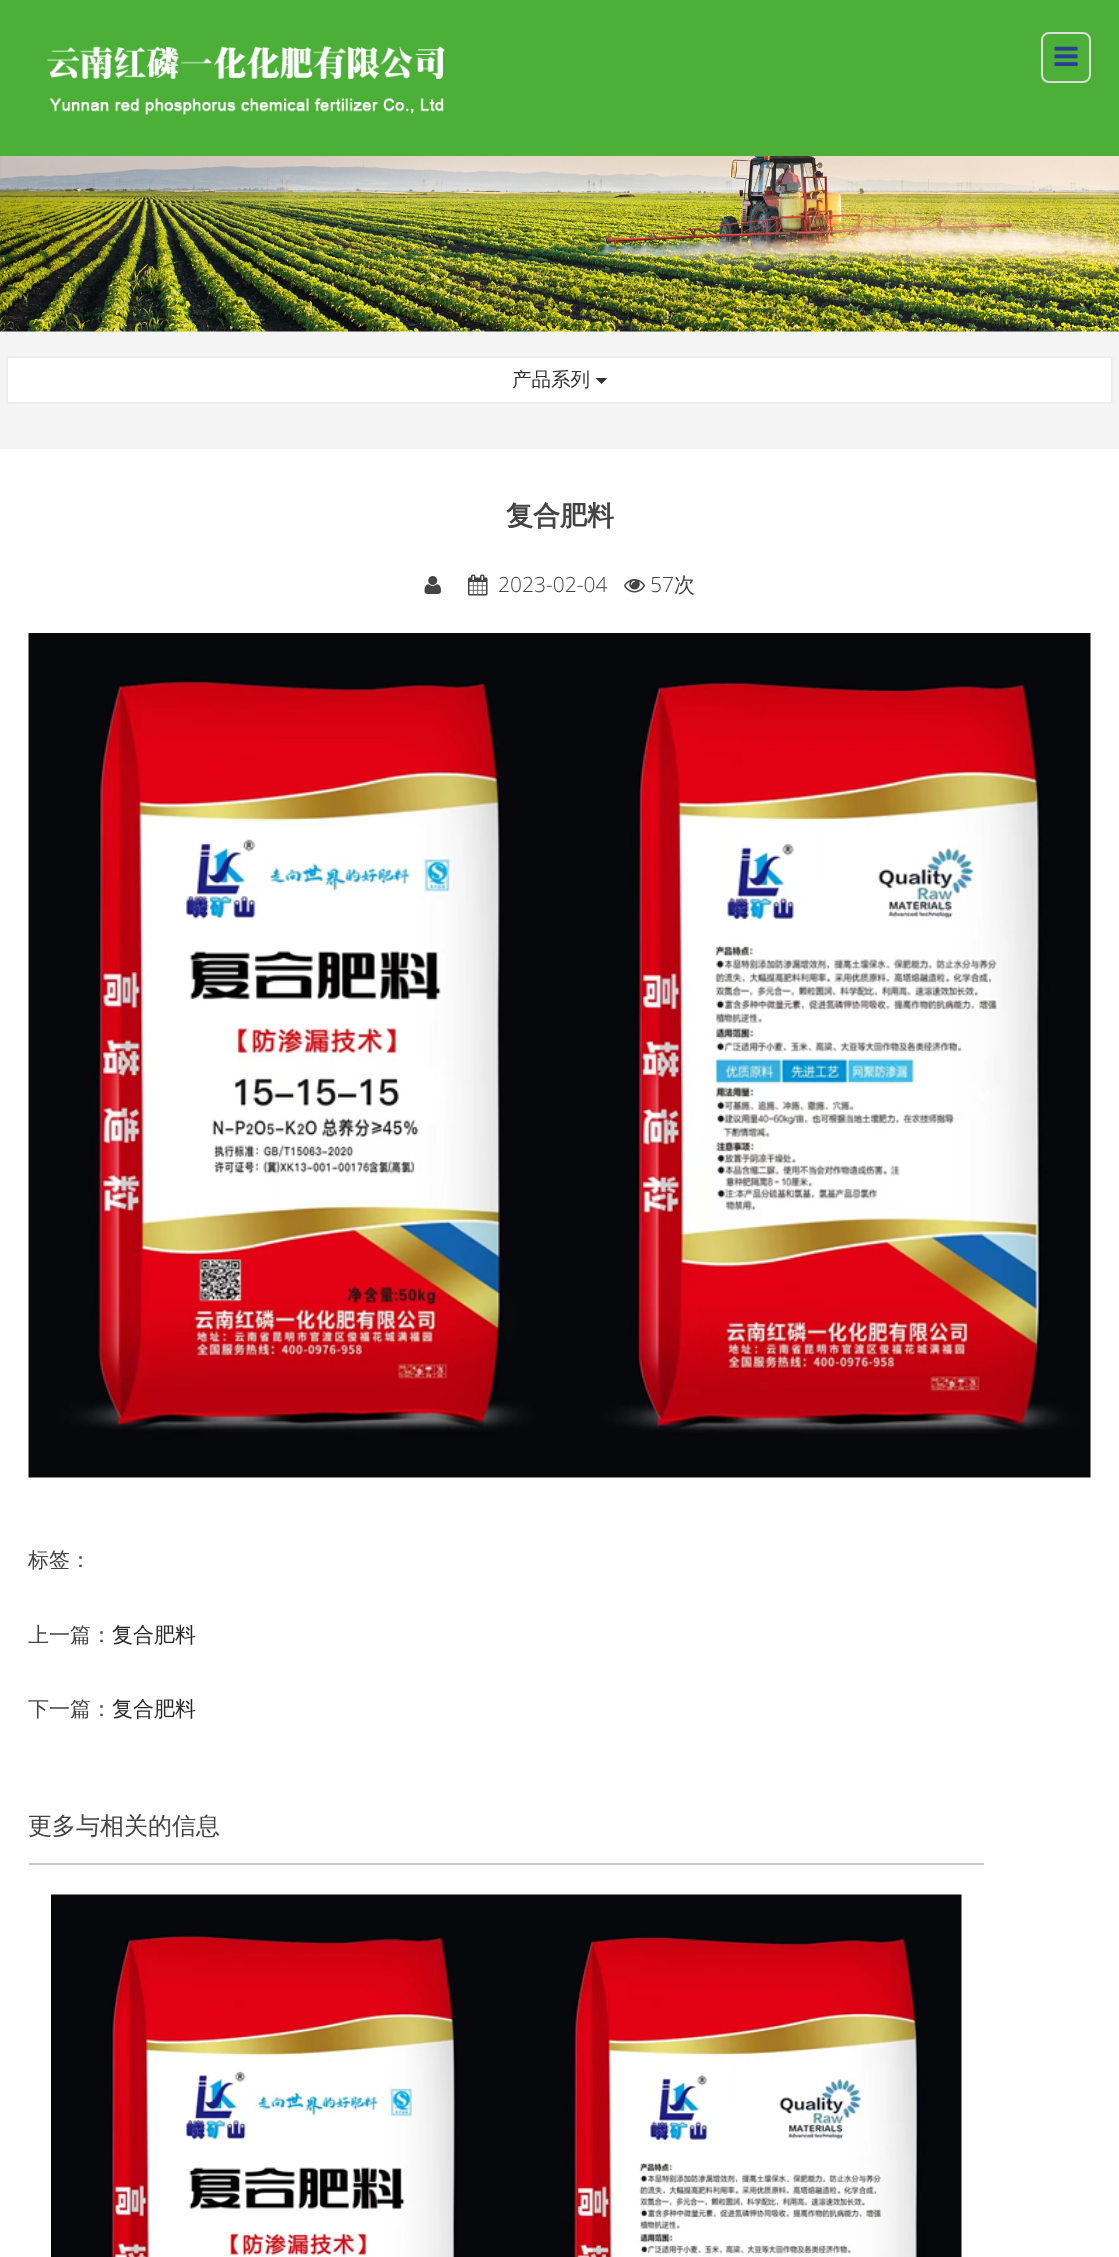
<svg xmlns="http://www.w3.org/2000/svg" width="1119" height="2257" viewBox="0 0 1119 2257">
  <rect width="100%" height="100%" fill="rgb(255,255,255)"/>
  <rect x="0" y="0" width="1119" height="156" fill="rgb(76,175,56)"/>
  <image x="47" y="46" width="398" height="69" href="pic1.png"/>
  <rect x="1042" y="33" width="48" height="49" rx="7" fill="none" stroke="rgb(221,221,221)" stroke-width="2"/>
  <image x="1054" y="46" width="24" height="20" href="pic2.png"/>
  <rect x="0" y="331" width="1119" height="118" fill="rgb(244,244,244)"/>
  <image x="0" y="156" width="1119" height="176" href="pic3.png"/>
  <rect x="7" y="357" width="1105" height="46" rx="2" fill="rgb(255,255,255)" stroke="rgb(238,238,238)" stroke-width="2"/>
  <text x="512" y="386" font-family="WenQuanYi Zen Hei" font-size="19.5" font-weight="500" fill="rgb(51,51,51)">产品系列</text>
  <path d="M595.5 378H607.5L601.5 384Z" fill="rgb(51,51,51)"/>
  <text x="506" y="525" font-family="WenQuanYi Zen Hei" font-size="27" font-weight="bold" fill="rgb(68,68,68)">复合肥料</text>
  <image x="424" y="576" width="17" height="18" href="pic4.png"/>
  <image x="468" y="574" width="20" height="22" href="pic5.png"/>
  <text x="498" y="592" font-family="Open Sans" font-size="21" font-weight="300" fill="rgb(68,68,68)">2023-02-04</text>
  <image x="624" y="579" width="21" height="14" href="pic6.png"/>
  <text x="650" y="592" font-family="Open Sans" font-size="21" font-weight="300" fill="rgb(68,68,68)">57</text>
  <text x="674" y="592" font-family="WenQuanYi Zen Hei" font-size="21" font-weight="500" fill="rgb(68,68,68)">次</text>
  <image x="28" y="633" width="1063" height="845" href="pic7.png"/>
  <g font-family="WenQuanYi Zen Hei" font-size="21" font-weight="500" fill="rgb(68,68,68)">
    <text x="28" y="1567">标签：</text>
    <text x="28" y="1642">上一篇：</text>
  </g>
  <text x="112" y="1642" font-family="WenQuanYi Zen Hei" font-size="21" font-weight="500" fill="rgb(40,40,40)">复合肥料</text>
  <text x="28" y="1716" font-family="WenQuanYi Zen Hei" font-size="21" font-weight="500" fill="rgb(68,68,68)">下一篇：</text>
  <text x="112" y="1716" font-family="WenQuanYi Zen Hei" font-size="21" font-weight="500" fill="rgb(40,40,40)">复合肥料</text>
  <text x="28" y="1834" font-family="WenQuanYi Zen Hei" font-size="24" font-weight="500" fill="rgb(68,68,68)">更多与相关的信息</text>
  <rect x="29" y="1863" width="955" height="2" fill="rgb(204,204,204)"/>
  <image x="51" y="1894" width="911" height="363" href="pic8.png"/>
</svg>
